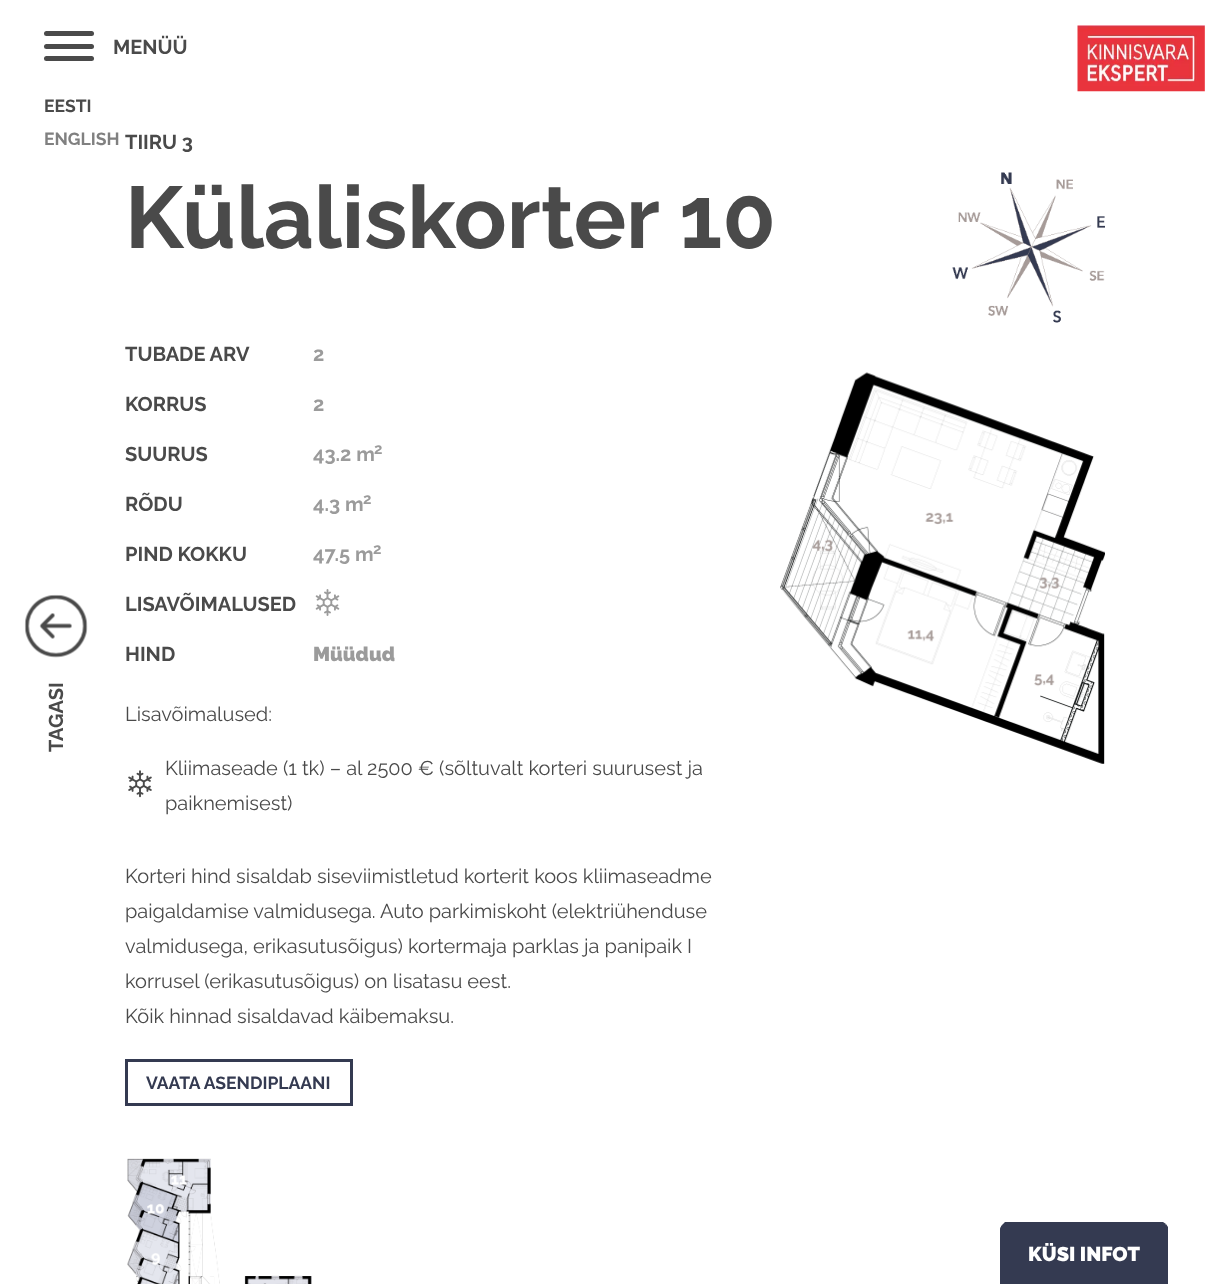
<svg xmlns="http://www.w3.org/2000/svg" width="1230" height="1284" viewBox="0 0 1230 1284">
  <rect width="100%" height="100%" fill="rgb(255,255,255)"/>
  <rect x="44" y="44" width="50" height="5" rx="2.5" fill="rgb(74,74,74)"/>
  <rect x="44" y="31" width="50" height="5" rx="2.5" fill="rgb(74,74,74)"/>
  <rect x="44" y="56" width="50" height="5" rx="2.5" fill="rgb(74,74,74)"/>
  <text x="113" y="54" font-family="Raleway" font-size="20" font-weight="bold" fill="rgb(74,74,74)">MENÜÜ</text>
  <text x="44" y="112" font-family="Raleway" font-size="17.5" font-weight="bold" fill="rgb(74,74,74)">EESTI</text>
  <text x="44" y="145" font-family="Raleway" font-size="17.5" font-weight="bold" fill="rgb(128,128,128)">ENGLISH</text>
  <image x="1077" y="25" width="128" height="67" href="pic1.png"/>
  <image x="24" y="594" width="64" height="64" href="pic2.png"/>
  <g font-family="Raleway" font-size="20" font-weight="bold" fill="rgb(74,74,74)">
    <text x="63" y="752" transform="rotate(-90 63 752)">TAGASI</text>
    <text x="125" y="149">TIIRU 3</text>
  </g>
  <text x="125" y="248" font-family="Raleway" font-size="87.5" font-weight="bold" fill="rgb(74,74,74)">Külaliskorter 10</text>
  <text x="125" y="361" font-family="Raleway" font-size="20" font-weight="bold" fill="rgb(74,74,74)">TUBADE ARV</text>
  <text x="313" y="361" font-family="Raleway" font-size="20" font-weight="bold" fill="rgb(155,155,155)">2</text>
  <text x="125" y="411" font-family="Raleway" font-size="20" font-weight="bold" fill="rgb(74,74,74)">KORRUS</text>
  <text x="313" y="411" font-family="Raleway" font-size="20" font-weight="bold" fill="rgb(155,155,155)">2</text>
  <text x="125" y="461" font-family="Raleway" font-size="20" font-weight="bold" fill="rgb(74,74,74)">SUURUS</text>
  <text x="313" y="461" font-family="Raleway" font-size="20" font-weight="bold" fill="rgb(155,155,155)">43.2 m</text>
  <text x="374" y="454" font-family="Raleway" font-size="15" font-weight="bold" fill="rgb(155,155,155)">2</text>
  <text x="125" y="511" font-family="Raleway" font-size="20" font-weight="bold" fill="rgb(74,74,74)">RÕDU</text>
  <text x="313" y="511" font-family="Raleway" font-size="20" font-weight="bold" fill="rgb(155,155,155)">4.3 m</text>
  <text x="363" y="504" font-family="Raleway" font-size="15" font-weight="bold" fill="rgb(155,155,155)">2</text>
  <text x="125" y="561" font-family="Raleway" font-size="20" font-weight="bold" fill="rgb(74,74,74)">PIND KOKKU</text>
  <text x="313" y="561" font-family="Raleway" font-size="20" font-weight="bold" fill="rgb(155,155,155)">47.5 m</text>
  <text x="373" y="554" font-family="Raleway" font-size="15" font-weight="bold" fill="rgb(155,155,155)">2</text>
  <text x="125" y="611" font-family="Raleway" font-size="20" font-weight="bold" fill="rgb(74,74,74)">LISAVÕIMALUSED</text>
  <image x="315" y="589" width="25" height="27" href="pic3.png"/>
  <text x="125" y="661" font-family="Raleway" font-size="20" font-weight="bold" fill="rgb(74,74,74)">HIND</text>
  <text x="313" y="661" font-family="Raleway" font-size="20" font-weight="900" fill="rgb(155,155,155)">Müüdud</text>
  <text x="125" y="721" font-family="Raleway" font-size="20" fill="rgb(74,74,74)">Lisavõimalused:</text>
  <image x="128" y="770" width="24" height="28" href="pic4.png"/>
  <g font-family="Raleway" font-size="20" fill="rgb(74,74,74)">
    <text>
      <tspan x="165" y="775">Kliimaseade (1 tk) – al 2500 € (sõltuvalt korteri suurusest ja</tspan>
      <tspan x="165" y="810">paiknemisest)</tspan>
    </text>
    <text>
      <tspan x="125" y="883">Korteri hind sisaldab siseviimistletud korterit koos kliimaseadme</tspan>
      <tspan x="125" y="918">paigaldamise valmidusega. Auto parkimiskoht (elektriühenduse</tspan>
      <tspan x="125" y="953">valmidusega, erikasutusõigus) kortermaja parklas ja panipaik I</tspan>
      <tspan x="125" y="988">korrusel (erikasutusõigus) on lisatasu eest.</tspan>
      <tspan x="125" y="1023">Kõik hinnad sisaldavad käibemaksu.</tspan>
    </text>
  </g>
  <rect x="126.5" y="1060.5" width="225" height="44" fill="none" stroke="rgb(52,58,81)" stroke-width="3"/>
  <text x="146" y="1089" font-family="Raleway" font-size="17.5" font-weight="bold" fill="rgb(52,58,81)">VAATA ASENDIPLAANI</text>
  <image x="127" y="1158" width="185" height="126" href="pic5.png"/>
  <image x="952" y="172" width="153" height="151" href="pic6.png"/>
  <image x="780" y="372" width="325" height="392" href="pic7.png"/>
  <path d="M1008 1223H1160C1164.5 1223 1168 1226.5 1168 1231V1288H1000V1231C1000 1226.5 1003.5 1223 1008 1223Z" fill="rgb(52,58,81)"/>
  <path d="M1008 1225C1006 1225 1005 1226 1004 1226L1002 1225L1005 1222H1163L1166 1224L1164 1226C1163 1226 1162 1225 1160 1225Z" fill="rgb(52,58,81)"/>
  <path d="M1166 1224L1168 1227V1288L1165 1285V1230C1165 1228 1164 1227 1164 1226Z" fill="rgb(52,58,81)"/>
  <path d="M1000 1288L1002 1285V1229L1004 1226L1002 1225C1001 1226 1000 1228 1000 1230Z" fill="rgb(52,58,81)"/>
  <text x="1028" y="1261" font-family="Raleway" font-size="20" font-weight="900" fill="rgb(255,255,255)">KÜSI INFOT</text>
</svg>
